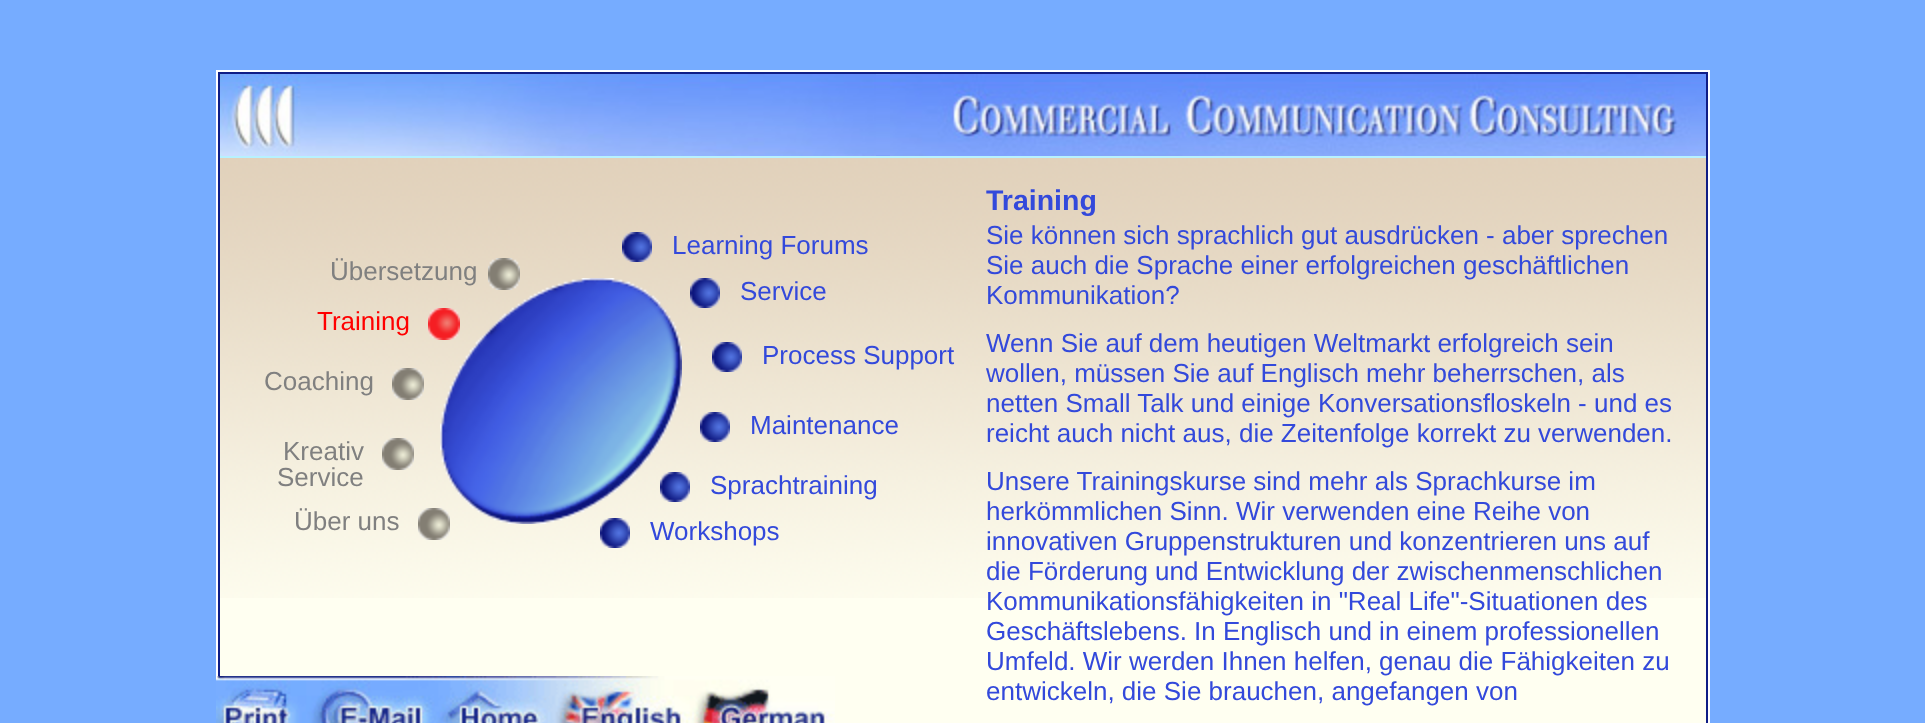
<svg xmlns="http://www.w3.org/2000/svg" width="1925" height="723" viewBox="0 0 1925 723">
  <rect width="100%" height="100%" fill="rgb(118,172,255)"/>
  <rect x="216" y="70" width="1494" height="653" fill="rgb(255,255,255)"/>
  <rect x="220" y="598" width="1486" height="125" fill="rgb(255,255,241)"/>
  <image x="220" y="158" width="1486" height="440" href="pic1.png"/>
  <rect x="219" y="73" width="1488" height="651" fill="none" stroke="rgb(15,29,134)" stroke-width="2"/>
  <image x="876" y="74" width="14" height="82" href="pic2.png"/>
  <rect x="220" y="156" width="1486" height="2" fill="rgb(183,241,255)"/>
  <image x="220" y="74" width="654" height="82" href="pic3.png"/>
  <image x="874" y="74" width="2" height="82" href="pic4.png"/>
  <image x="890" y="74" width="816" height="82" href="pic5.png"/>
  <image x="622" y="232" width="30" height="30" href="pic6.png"/>
  <text x="672" y="254" font-family="Liberation Sans" font-size="26" fill="rgb(51,73,219)">Learning Forums</text>
  <image x="440" y="278" width="242" height="246" href="pic8.png"/>
  <image x="488" y="258" width="32" height="32" href="pic7.png"/>
  <text x="330" y="280" font-family="Liberation Sans" font-size="26" fill="rgb(128,128,128)">Übersetzung</text>
  <image x="690" y="278" width="30" height="30" href="pic9.png"/>
  <text x="740" y="300" font-family="Liberation Sans" font-size="26" fill="rgb(51,73,219)">Service</text>
  <image x="428" y="308" width="32" height="32" href="pic10.png"/>
  <text x="317" y="330" font-family="Liberation Sans" font-size="26" fill="rgb(255,0,0)">Training</text>
  <image x="712" y="342" width="30" height="30" href="pic11.png"/>
  <text x="762" y="364" font-family="Liberation Sans" font-size="26" fill="rgb(51,73,219)">Process Support</text>
  <image x="392" y="368" width="32" height="32" href="pic12.png"/>
  <text x="264" y="390" font-family="Liberation Sans" font-size="26" fill="rgb(128,128,128)">Coaching</text>
  <image x="700" y="412" width="30" height="30" href="pic13.png"/>
  <text x="750" y="434" font-family="Liberation Sans" font-size="26" fill="rgb(51,73,219)">Maintenance</text>
  <image x="382" y="438" width="32" height="32" href="pic14.png"/>
  <g font-family="Liberation Sans" font-size="26" fill="rgb(128,128,128)">
    <text x="283" y="460">Kreativ</text>
    <text x="277" y="486">Service</text>
  </g>
  <image x="660" y="472" width="30" height="30" href="pic15.png"/>
  <text x="710" y="494" font-family="Liberation Sans" font-size="26" fill="rgb(51,73,219)">Sprachtraining</text>
  <image x="418" y="508" width="32" height="32" href="pic16.png"/>
  <text x="294" y="530" font-family="Liberation Sans" font-size="26" fill="rgb(128,128,128)">Über uns</text>
  <image x="600" y="518" width="30" height="30" href="pic17.png"/>
  <text x="650" y="540" font-family="Liberation Sans" font-size="26" fill="rgb(51,73,219)">Workshops</text>
  <image x="216" y="676" width="619" height="47" href="pic18.png"/>
  <text x="986" y="210" font-family="Liberation Sans" font-size="28.5" font-weight="bold" fill="rgb(51,73,219)">Training</text>
  <g font-family="Liberation Sans" font-size="26" fill="rgb(51,73,219)">
    <text>
      <tspan x="986" y="244">Sie können sich sprachlich gut ausdrücken - aber sprechen</tspan>
      <tspan x="986" y="274">Sie auch die Sprache einer erfolgreichen geschäftlichen</tspan>
      <tspan x="986" y="304">Kommunikation?</tspan>
      <tspan x="986" y="352">Wenn Sie auf dem heutigen Weltmarkt erfolgreich sein</tspan>
      <tspan x="986" y="382">wollen, müssen Sie auf Englisch mehr beherrschen, als</tspan>
      <tspan x="986" y="412">netten Small Talk und einige Konversationsfloskeln - und es</tspan>
      <tspan x="986" y="442">reicht auch nicht aus, die Zeitenfolge korrekt zu verwenden.</tspan>
      <tspan x="986" y="490">Unsere Trainingskurse sind mehr als Sprachkurse im</tspan>
      <tspan x="986" y="520">herkömmlichen Sinn. Wir verwenden eine Reihe von</tspan>
      <tspan x="986" y="550">innovativen Gruppenstrukturen und konzentrieren uns auf</tspan>
      <tspan x="986" y="580">die Förderung und Entwicklung der zwischenmenschlichen</tspan>
      <tspan x="986" y="610">Kommunikationsfähigkeiten in "Real Life"-Situationen des</tspan>
      <tspan x="986" y="640">Geschäftslebens. In Englisch und in einem professionellen</tspan>
      <tspan x="986" y="670">Umfeld. Wir werden Ihnen helfen, genau die Fähigkeiten zu</tspan>
      <tspan x="986" y="700">entwickeln, die Sie brauchen, angefangen von</tspan>
    </text>
  </g>
</svg>
